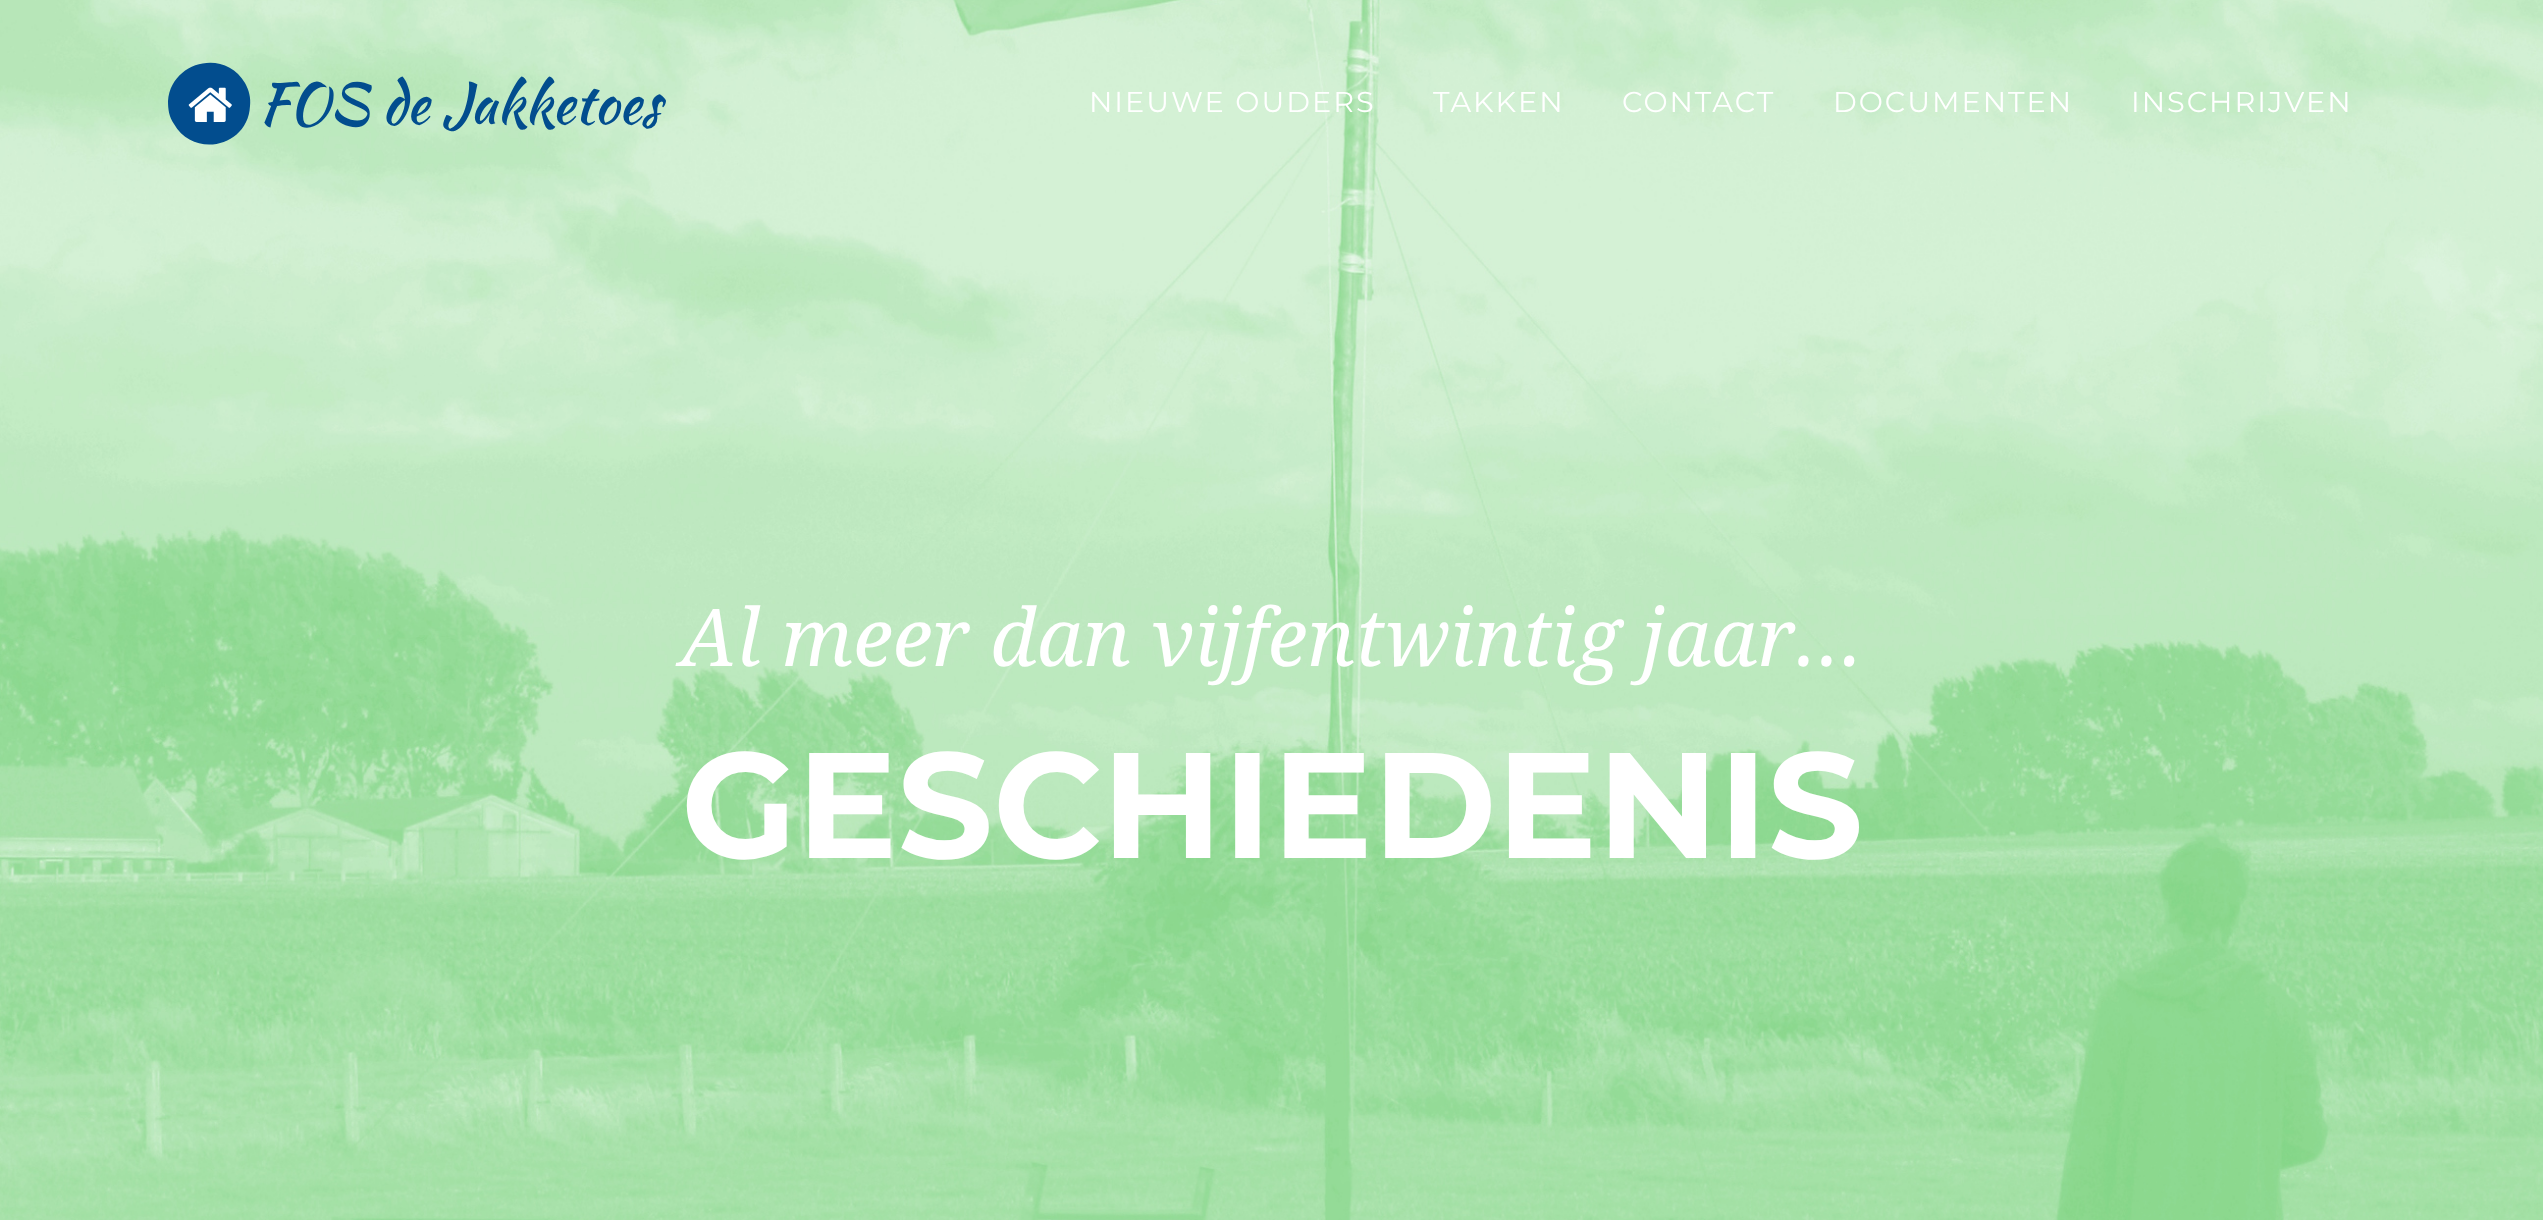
<svg xmlns="http://www.w3.org/2000/svg" width="2543" height="1220" viewBox="0 0 2543 1220">
  <rect width="100%" height="100%" fill="rgb(255,255,255)"/>
  <image x="0" y="0" width="2543" height="1220" href="pic2.png"/>
  <path d="M245 83C249 90 251 98 250 106C248 147 194 159 174 124C169 117 168 109 168 101C171 61 225 48 245 83Z" fill="rgb(2,77,142)"/>
  <image x="188" y="87" width="44" height="35" href="pic1.png"/>
  <text x="258" y="123" font-family="Kaushan Script" font-size="56" fill="rgb(2,77,142)">FOS de Jakketoes</text>
  <g font-family="Montserrat" font-size="28.75" letter-spacing="2" fill="rgb(255,255,255)">
    <text x="1089" y="112">NIEUWE OUDERS</text>
    <text x="1433" y="112">TAKKEN</text>
    <text x="1622" y="112">CONTACT</text>
    <text x="1833" y="112">DOCUMENTEN</text>
    <text x="2131" y="112">INSCHRIJVEN</text>
  </g>
  <text x="680" y="666" font-family="Droid Serif" font-size="80" font-style="italic" fill="rgb(255,255,255)">Al meer dan vijfentwintig jaar...</text>
  <text x="681" y="858" font-family="Montserrat" font-size="150" font-weight="bold" fill="rgb(255,255,255)">GESCHIEDENIS</text>
</svg>
